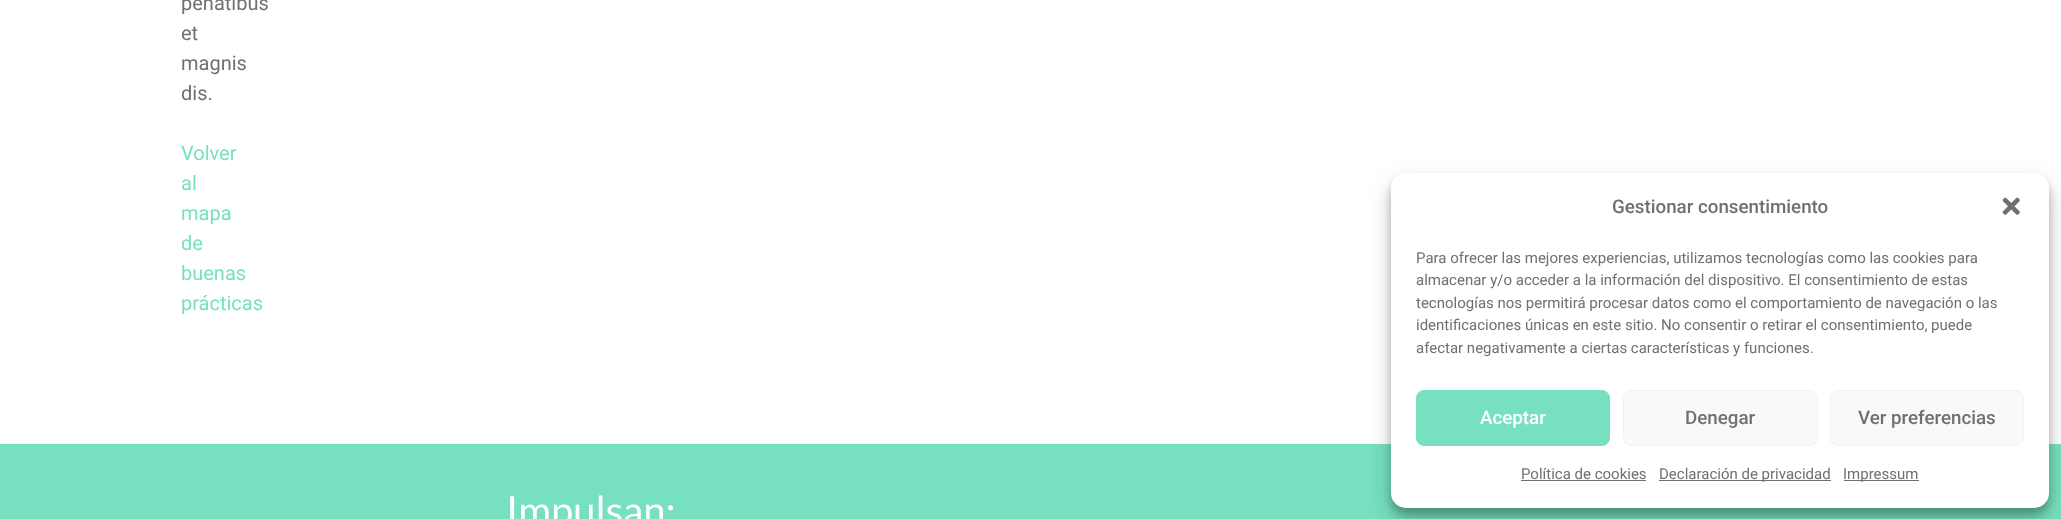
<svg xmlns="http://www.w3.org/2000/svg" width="2061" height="519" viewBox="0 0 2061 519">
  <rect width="100%" height="100%" fill="rgb(255,255,255)"/>
  <g font-family="Roboto" font-size="20" fill="rgb(111,112,114)">
    <text>
      <tspan x="181" y="10">penatibus</tspan>
      <tspan x="181" y="40">et</tspan>
      <tspan x="181" y="70">magnis</tspan>
      <tspan x="181" y="100">dis.</tspan>
    </text>
  </g>
  <g font-family="Roboto" font-size="20" fill="rgb(118,224,192)">
    <text>
      <tspan x="181" y="160">Volver</tspan>
      <tspan x="181" y="190">al</tspan>
      <tspan x="181" y="220">mapa</tspan>
      <tspan x="181" y="250">de</tspan>
      <tspan x="181" y="280">buenas</tspan>
      <tspan x="181" y="310">prácticas</tspan>
    </text>
  </g>
  <rect x="0" y="444" width="2061" height="75" fill="rgb(118,224,192)"/>
  <text x="506" y="525" font-family="Lato" font-size="40" fill="rgb(255,255,255)">Impulsan:</text>
  <rect x="1391" y="180" width="658" height="335" rx="15" fill="rgba(0,0,0,0.23)" filter="blur(4px)"/>
  <rect x="1391" y="185" width="658" height="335" rx="15" fill="rgba(0,0,0,0.19)" filter="blur(12.5px)"/>
  <rect x="1391" y="173" width="658" height="335" rx="15" fill="rgb(255,255,255)"/>
  <text x="1612" y="213" font-family="Roboto" font-size="18.75" font-weight="500" fill="rgb(111,112,114)">Gestionar consentimiento</text>
  <image x="2002" y="197" width="18" height="18" href="pic1.png"/>
  <g font-family="Roboto" font-size="15" fill="rgb(111,112,114)">
    <text>
      <tspan x="1416" y="263">Para ofrecer las mejores experiencias, utilizamos tecnologías como las cookies para</tspan>
      <tspan x="1416" y="285">almacenar y/o acceder a la información del dispositivo. El consentimiento de estas</tspan>
      <tspan x="1416" y="308">tecnologías nos permitirá procesar datos como el comportamiento de navegación o las</tspan>
      <tspan x="1416" y="330">identificaciones únicas en este sitio. No consentir o retirar el consentimiento, puede</tspan>
      <tspan x="1416" y="353">afectar negativamente a ciertas características y funciones.</tspan>
    </text>
  </g>
  <rect x="1416.5" y="390.5" width="193" height="55" rx="7.5" fill="rgb(118,224,192)" stroke="rgb(118,224,192)"/>
  <text x="1480" y="424" font-family="Roboto" font-size="18.75" font-weight="500" fill="rgb(255,255,255)">Aceptar</text>
  <rect x="1623.5" y="390.5" width="194" height="55" rx="7.5" fill="rgb(249,249,249)" stroke="rgb(242,242,242)"/>
  <text x="1685" y="424" font-family="Roboto" font-size="18.75" font-weight="500" fill="rgb(111,112,114)">Denegar</text>
  <rect x="1830.5" y="390.5" width="193" height="55" rx="7.5" fill="rgb(249,249,249)" stroke="rgb(242,242,242)"/>
  <text x="1858" y="424" font-family="Roboto" font-size="18.75" font-weight="500" fill="rgb(111,112,114)">Ver preferencias</text>
  <text x="1521" y="479" font-family="Roboto" font-size="15" fill="rgb(111,112,114)">Política de cookies</text>
  <rect x="1521" y="480" width="125" height="1" fill="rgb(111,112,114)"/>
  <rect x="1659" y="480" width="172" height="1" fill="rgb(111,112,114)"/>
  <text x="1659" y="479" font-family="Roboto" font-size="15" fill="rgb(111,112,114)">Declaración de privacidad</text>
  <rect x="1844" y="480" width="75" height="1" fill="rgb(111,112,114)"/>
  <text x="1843" y="479" font-family="Roboto" font-size="15" fill="rgb(111,112,114)">Impressum</text>
</svg>
